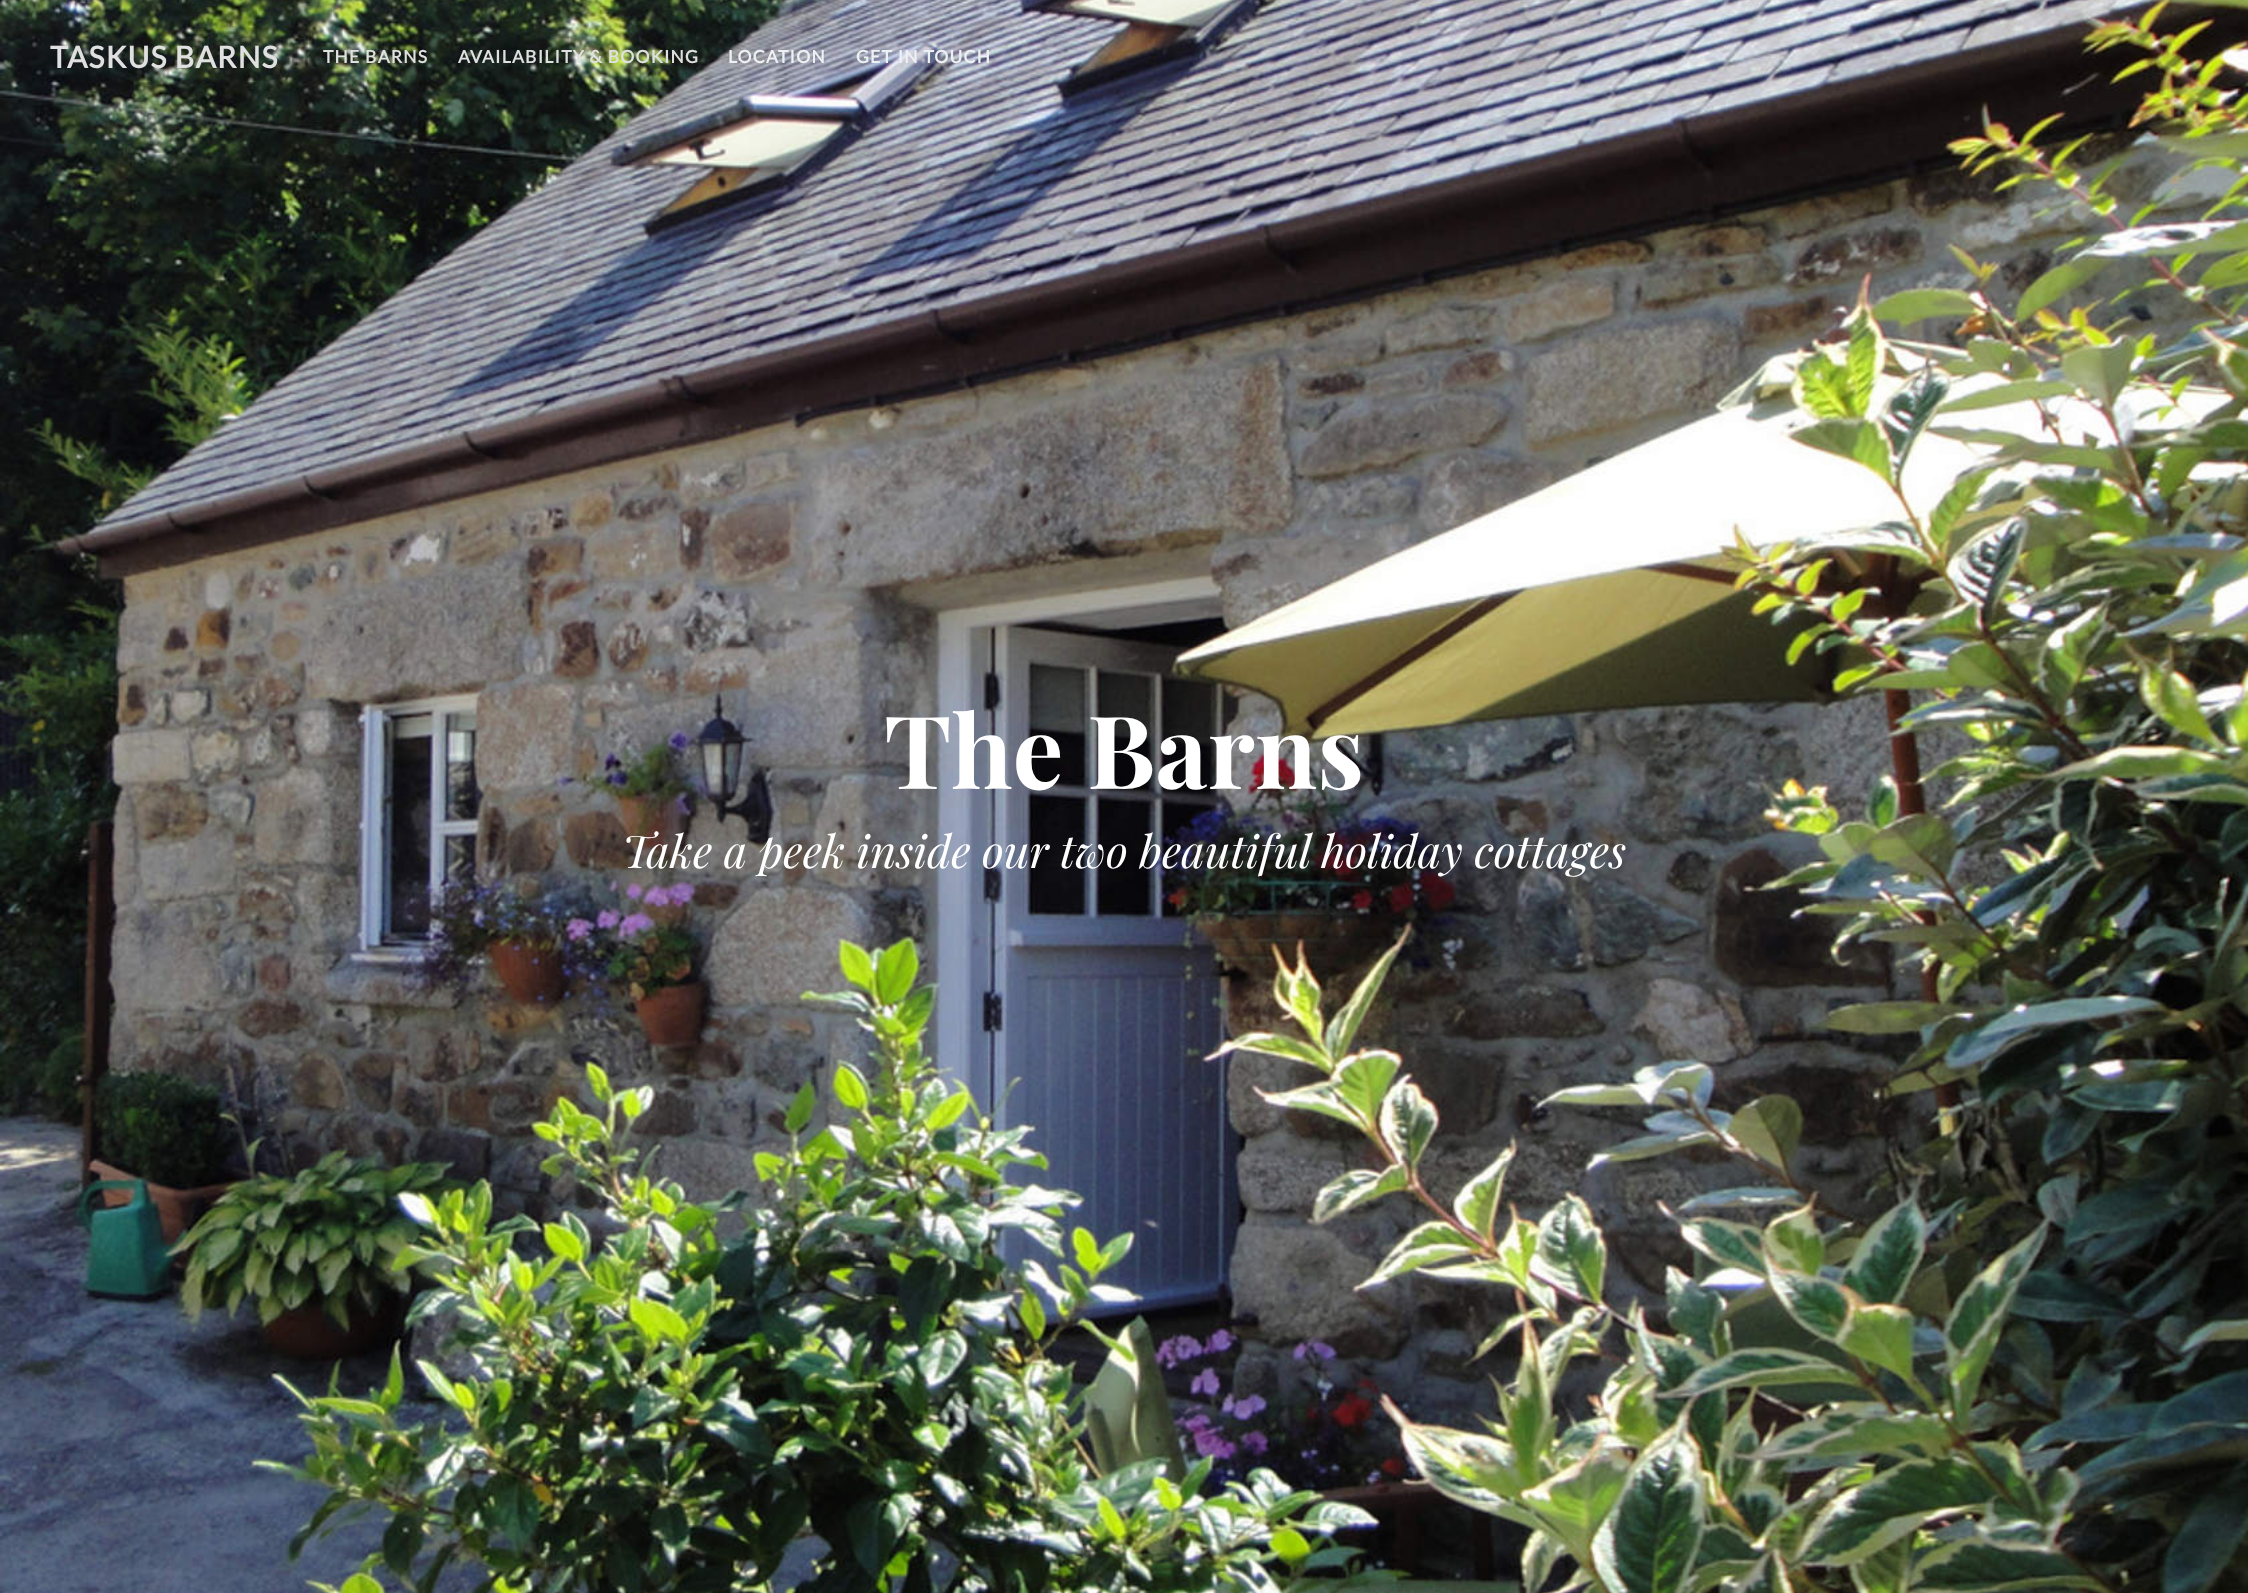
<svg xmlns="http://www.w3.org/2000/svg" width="2248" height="1593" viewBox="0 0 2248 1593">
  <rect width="100%" height="100%" fill="rgb(255,255,255)"/>
  <image x="0" y="0" width="2248" height="1593" href="pic1.png"/>
  <text x="50" y="68" font-family="Lato" font-size="30" font-weight="bold" letter-spacing="1.25" fill="rgb(223,224,223)">TASKUS BARNS</text>
  <g font-family="Lato" font-size="17.5" font-weight="bold" letter-spacing="1.25" fill="rgb(223,224,223)">
    <text x="323" y="63">THE BARNS</text>
    <text x="458" y="63">AVAILABILITY &amp; BOOKING</text>
  </g>
  <g font-family="Lato" font-size="17.5" font-weight="bold" letter-spacing="1.25" fill="rgb(239,240,242)">
    <text x="728" y="63">LOCATION</text>
    <text x="856" y="63">GET IN TOUCH</text>
  </g>
  <text x="884" y="789" font-family="Playfair Display" font-size="101.25" font-weight="bold" fill="rgb(255,255,255)">The Barns</text>
  <text x="622" y="868" font-family="Playfair Display" font-size="45" font-style="italic" fill="rgb(255,255,255)">Take a peek inside our two beautiful holiday cottages</text>
</svg>
